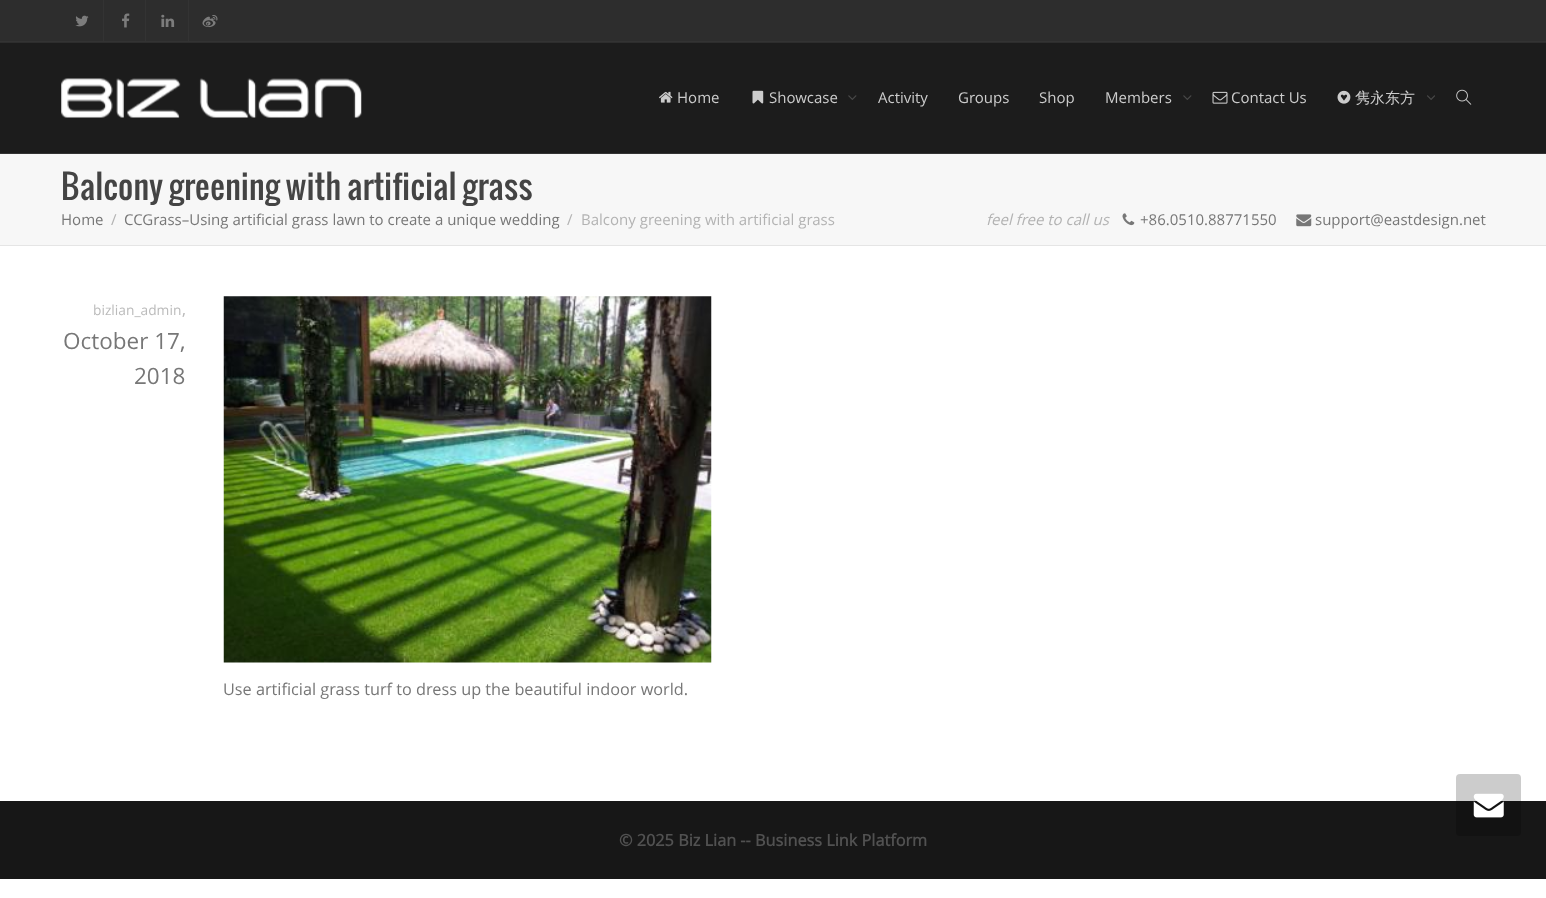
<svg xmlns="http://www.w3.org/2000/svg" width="1546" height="898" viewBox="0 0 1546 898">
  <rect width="100%" height="100%" fill="rgb(255,255,255)"/>
  <rect x="0" y="0" width="1546" height="43" fill="rgb(45,45,45)"/>
  <rect x="0" y="41" width="1546" height="1" fill="rgb(51,51,51)"/>
  <rect x="103" y="0" width="1" height="41" fill="rgb(51,51,51)"/>
  <image x="75" y="15" width="14" height="12" href="pic1.png"/>
  <rect x="145" y="0" width="1" height="41" fill="rgb(51,51,51)"/>
  <image x="122" y="13" width="8" height="15" href="pic2.png"/>
  <rect x="188" y="0" width="1" height="41" fill="rgb(51,51,51)"/>
  <image x="161" y="14" width="14" height="13" href="pic3.png"/>
  <image x="202" y="15" width="16" height="13" href="pic4.png"/>
  <rect x="0" y="43" width="1546" height="110" fill="rgb(28,28,28)"/>
  <rect x="0" y="153" width="1546" height="1" fill="rgb(51,51,51)"/>
  <image x="61" y="78" width="301" height="40" href="pic5.png"/>
  <image x="659" y="91" width="14" height="12" href="pic6.png"/>
  <text x="677" y="103" font-family="Open Sans" font-size="15" fill="rgb(204,204,204)">Home</text>
  <image x="752" y="90" width="12" height="14" href="pic7.png"/>
  <text x="769" y="103" font-family="Open Sans" font-size="15" fill="rgb(204,204,204)">Showcase</text>
  <image x="848" y="95" width="9" height="5" href="pic8.png"/>
  <g font-family="Open Sans" font-size="15" fill="rgb(204,204,204)">
    <text x="878" y="103">Activity</text>
    <text x="958" y="103">Groups</text>
    <text x="1039" y="103">Shop</text>
    <text x="1105" y="103">Members</text>
  </g>
  <image x="1183" y="95" width="9" height="5" href="pic8.png"/>
  <image x="1212" y="91" width="16" height="13" href="pic9.png"/>
  <text x="1231" y="103" font-family="Open Sans" font-size="15" fill="rgb(204,204,204)">Contact Us</text>
  <image x="1337" y="90" width="14" height="14" href="pic10.png"/>
  <text x="1355" y="103" font-family="WenQuanYi Zen Hei" font-size="15" font-weight="500" fill="rgb(204,204,204)">隽永东方</text>
  <image x="1427" y="95" width="8" height="5" href="pic11.png"/>
  <image x="1456" y="89" width="16" height="16" href="pic12.png"/>
  <rect x="0" y="154" width="1546" height="91" fill="rgb(247,247,247)"/>
  <rect x="0" y="245" width="1546" height="1" fill="rgb(229,229,229)"/>
  <text x="61" y="200" font-family="Oswald" font-size="32.5" fill="rgb(68,68,68)">Balcony greening with artificial grass</text>
  <text x="61" y="225" font-family="Open Sans" font-size="15" fill="rgb(119,119,119)">Home</text>
  <text x="111" y="225" font-family="Open Sans" font-size="15" fill="rgb(179,179,179)">/</text>
  <text x="124" y="225" font-family="Open Sans" font-size="15" fill="rgb(119,119,119)">CCGrass–Using artificial grass lawn to create a unique wedding</text>
  <g font-family="Open Sans" font-size="15" fill="rgb(179,179,179)">
    <text x="567" y="225">/</text>
    <text x="581" y="225">Balcony greening with artificial grass</text>
  </g>
  <text x="986" y="225" font-family="Open Sans" font-size="15" font-style="italic" fill="rgb(179,179,179)">feel free to call us</text>
  <image x="1122" y="213" width="13" height="13" href="pic13.png"/>
  <text x="1140" y="225" font-family="Open Sans" font-size="15" fill="rgb(119,119,119)">+86.0510.88771550</text>
  <image x="1296" y="214" width="16" height="13" href="pic14.png"/>
  <text x="1315" y="225" font-family="Open Sans" font-size="15" fill="rgb(119,119,119)">support@eastdesign.net</text>
  <text x="93" y="315" font-family="Open Sans" font-size="13.75" fill="rgb(187,187,187)">bizlian_admin</text>
  <text x="182" y="315" font-family="Open Sans" font-size="16.25" fill="rgb(187,187,187)">,</text>
  <g font-family="Open Sans" font-size="22.5" fill="rgb(119,119,119)">
    <text x="63" y="349">October 17,</text>
    <text x="134" y="384">2018</text>
  </g>
  <image x="223" y="296" width="489" height="367" href="pic15.png"/>
  <text x="223" y="695" font-family="Open Sans" font-size="16.25" fill="rgb(119,119,119)">Use artificial grass turf to dress up the beautiful indoor world.</text>
  <rect x="0" y="801" width="1546" height="78" fill="rgb(23,23,23)"/>
  <rect x="1456" y="774" width="65" height="62" rx="4" fill="rgba(0,0,0,0.2)"/>
  <image x="1473" y="793" width="31" height="25" href="pic16.png"/>
  <text x="619" y="846" font-family="Open Sans" font-size="16.25" font-weight="bold" fill="rgb(81,81,81)">© 2025 Biz Lian -- Business Link Platform</text>
</svg>
